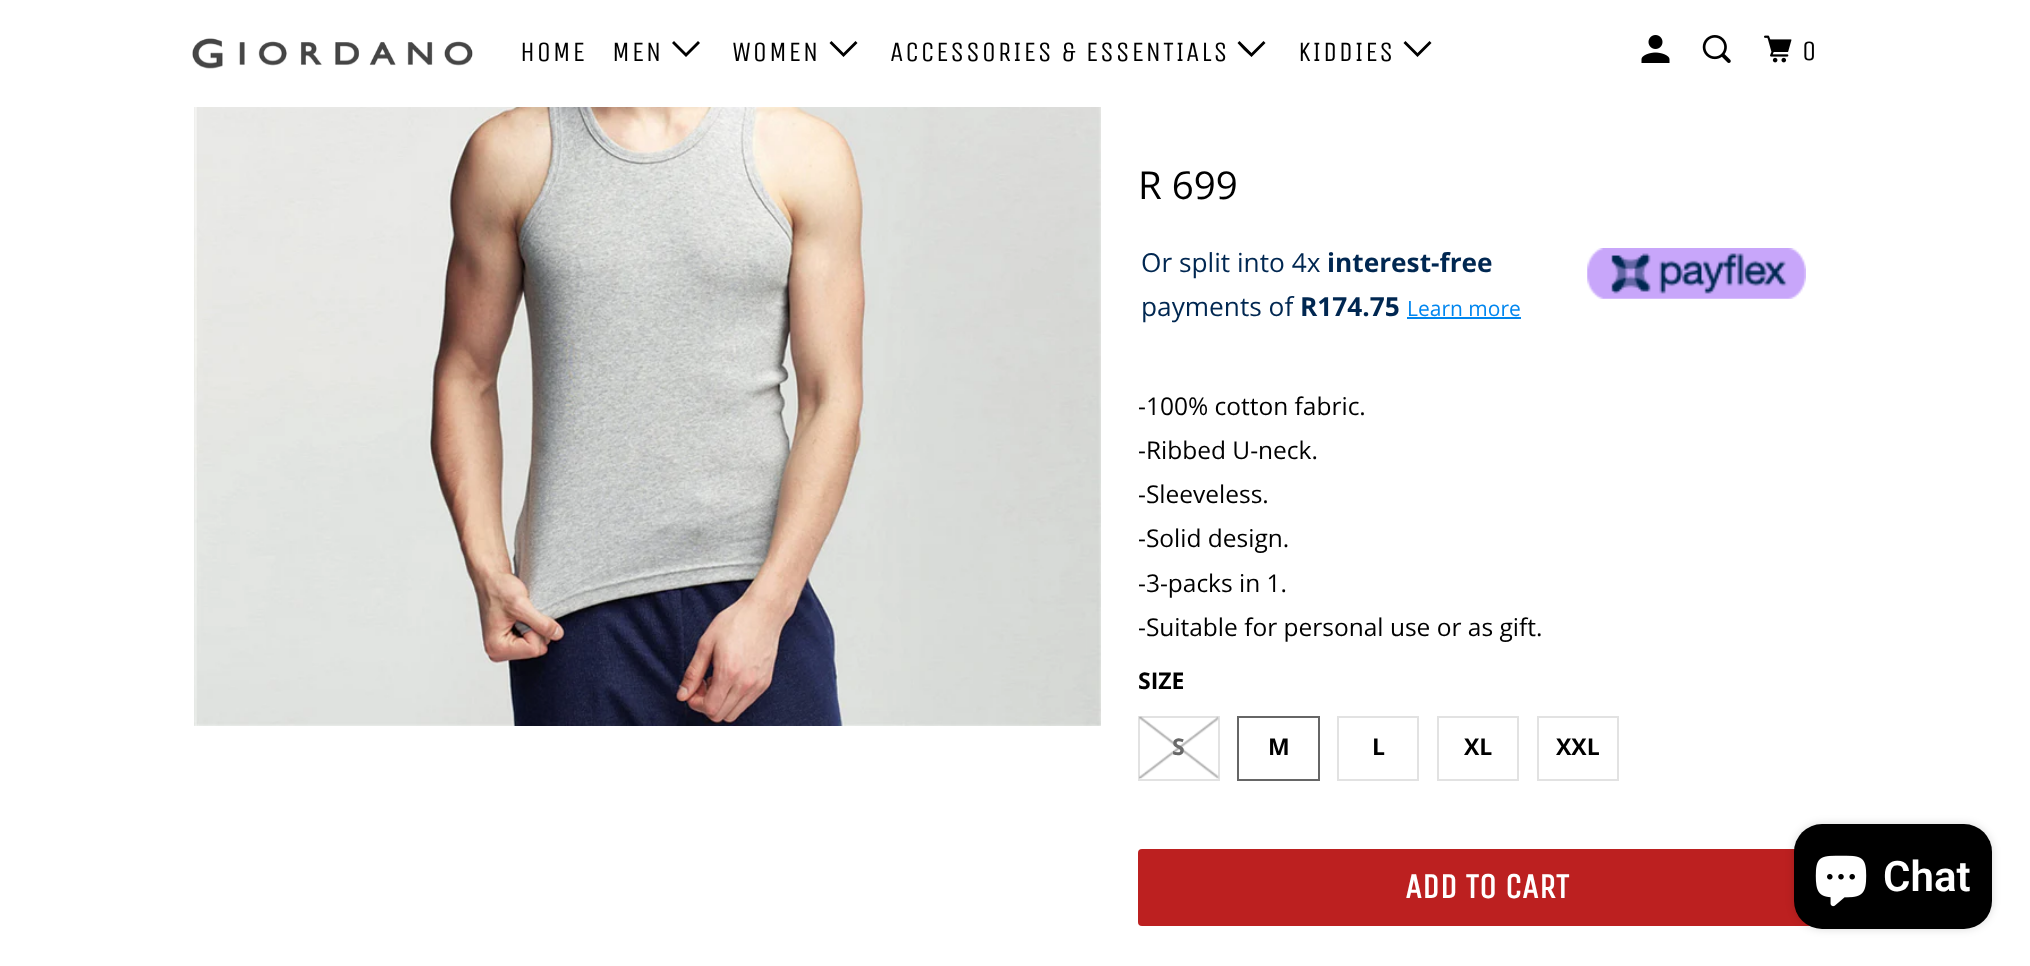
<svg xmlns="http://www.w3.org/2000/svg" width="2030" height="966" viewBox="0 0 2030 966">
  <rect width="100%" height="100%" fill="rgb(255,255,255)"/>
  <image x="192" y="38" width="281" height="31" href="pic1.png"/>
  <g font-family="Unica One" font-size="28" letter-spacing="1.75" fill="rgb(0,0,0)">
    <text x="520" y="61">HOME</text>
    <text x="612" y="61">MEN</text>
  </g>
  <path d="M679 50L672 43L674 41L686 53L698 41L700 43L686 57Z" fill="rgb(0,0,0)"/>
  <text x="732" y="61" font-family="Unica One" font-size="28" letter-spacing="1.75" fill="rgb(0,0,0)">WOMEN</text>
  <path d="M836.5 50L829.5 43L831.5 41L843.5 53L855.5 41L857.5 43L843.5 57Z" fill="rgb(0,0,0)"/>
  <text x="890" y="61" font-family="Unica One" font-size="28" letter-spacing="1.75" fill="rgb(0,0,0)">ACCESSORIES &amp; ESSENTIALS</text>
  <path d="M1244 50L1237.5 43L1239.5 41L1251.5 53L1263.5 41L1265.5 43L1251.5 57Z" fill="rgb(0,0,0)"/>
  <text x="1298" y="61" font-family="Unica One" font-size="28" letter-spacing="1.75" fill="rgb(0,0,0)">KIDDIES</text>
  <path d="M1410.5 50L1403.5 43L1405.5 41L1417.5 53L1429.5 41L1431.5 43L1417.5 57Z" fill="rgb(0,0,0)"/>
  <image x="1641" y="35" width="29" height="28" href="pic2.png"/>
  <image x="1702" y="35" width="29" height="28" href="pic3.png"/>
  <image x="1764" y="35" width="28" height="28" href="pic4.png"/>
  <text x="1802" y="60" font-family="Unica One" font-size="28" letter-spacing="1.75" fill="rgb(0,0,0)">0</text>
  <image x="194" y="107" width="907" height="619" href="pic5.png"/>
  <text x="1138" y="199" font-family="Open Sans" font-size="38.5" fill="rgb(0,0,0)">R 699</text>
  <text x="1141" y="272" font-family="Open Sans" font-size="26.25" fill="rgb(0,39,81)">Or split into 4x</text>
  <text x="1327" y="272" font-family="Open Sans" font-size="26.25" font-weight="bold" fill="rgb(0,39,81)">interest-free</text>
  <text x="1141" y="316" font-family="Open Sans" font-size="26.25" fill="rgb(0,39,81)">payments of</text>
  <text x="1300" y="316" font-family="Open Sans" font-size="26.25" font-weight="bold" fill="rgb(0,39,81)">R174.75</text>
  <text x="1407" y="316" font-family="Open Sans" font-size="21" fill="rgb(0,134,239)">Learn more</text>
  <rect x="1407" y="317" width="114" height="2" fill="rgb(0,134,239)"/>
  <image x="1587" y="248" width="219" height="51" href="pic6.png"/>
  <g font-family="Open Sans" font-size="24.5" fill="rgb(0,0,0)">
    <text>
      <tspan x="1138" y="415">-100% cotton fabric.</tspan>
      <tspan x="1138" y="459">-Ribbed U-neck.</tspan>
      <tspan x="1138" y="503">-Sleeveless.</tspan>
      <tspan x="1138" y="547">-Solid design.</tspan>
      <tspan x="1138" y="592">-3-packs in 1.</tspan>
      <tspan x="1138" y="636">-Suitable for personal use or as gift.</tspan>
    </text>
  </g>
  <text x="1138" y="689" font-family="Open Sans" font-size="23" font-weight="bold" fill="rgb(0,0,0)">SIZE</text>
  <rect x="1139" y="717" width="80" height="63" fill="none" stroke="rgb(226,226,226)" stroke-width="2"/>
  <text x="1172" y="755" font-family="Open Sans" font-size="23" font-weight="bold" fill="rgb(102,102,102)">S</text>
  <image x="1139" y="716" width="80" height="63" href="pic7.png"/>
  <rect x="1238" y="717" width="81" height="63" fill="none" stroke="rgb(102,102,102)" stroke-width="2"/>
  <text x="1268" y="755" font-family="Open Sans" font-size="23" font-weight="bold" fill="rgb(0,0,0)">M</text>
  <rect x="1338" y="717" width="80" height="63" fill="none" stroke="rgb(226,226,226)" stroke-width="2"/>
  <text x="1372" y="755" font-family="Open Sans" font-size="23" font-weight="bold" fill="rgb(0,0,0)">L</text>
  <rect x="1438" y="717" width="80" height="63" fill="none" stroke="rgb(226,226,226)" stroke-width="2"/>
  <text x="1464" y="755" font-family="Open Sans" font-size="23" font-weight="bold" fill="rgb(0,0,0)">XL</text>
  <rect x="1538" y="717" width="80" height="63" fill="none" stroke="rgb(226,226,226)" stroke-width="2"/>
  <text x="1556" y="755" font-family="Open Sans" font-size="23" font-weight="bold" fill="rgb(0,0,0)">XXL</text>
  <rect x="1138" y="849" width="700" height="77" rx="4" fill="rgb(188,32,32)"/>
  <text x="1405" y="898" font-family="Unica One" font-size="35" font-weight="bold" fill="rgb(255,255,255)">ADD TO CART</text>
  <rect x="1794" y="824" width="198" height="105" rx="28" fill="rgba(0,0,0,0.15)" filter="blur(4.5px)"/>
  <rect x="1794" y="824" width="198" height="105" rx="28" fill="rgb(0,0,0)"/>
  <image x="1815" y="855" width="52" height="52" href="pic8.png"/>
  <text x="1883" y="891" font-family="Roboto" font-size="42" font-weight="600" fill="rgb(255,255,255)">Chat</text>
</svg>
